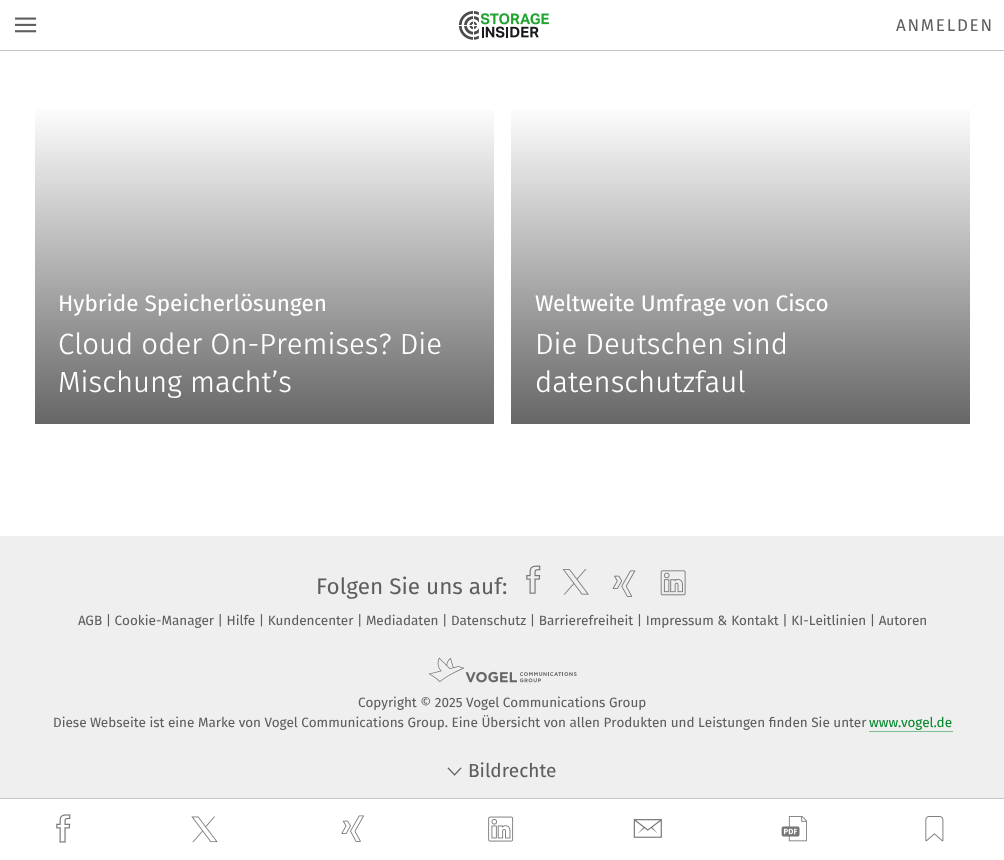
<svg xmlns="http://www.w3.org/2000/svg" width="1004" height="860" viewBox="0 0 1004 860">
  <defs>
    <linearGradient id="g1" gradientUnits="userSpaceOnUse" x1="264" y1="424" x2="264" y2="-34"><stop offset="0" stop-color="rgb(102,102,102)"/><stop offset="0.7" stop-color="rgb(255,255,255)"/></linearGradient>
    <linearGradient id="g2" gradientUnits="userSpaceOnUse" x1="741" y1="424" x2="741" y2="-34"><stop offset="0" stop-color="rgb(102,102,102)"/><stop offset="0.7" stop-color="rgb(255,255,255)"/></linearGradient>
  </defs>
  <rect width="100%" height="100%" fill="rgb(255,255,255)"/>
  <rect x="0" y="50" width="1004" height="1" fill="rgb(198,198,198)"/>
  <image x="15" y="17" width="22" height="16" href="pic1.png"/>
  <image x="458" y="11" width="91" height="29" href="pic2.png"/>
  <text x="896" y="31" font-family="'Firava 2'" font-size="17" letter-spacing="1.75" fill="rgb(94,94,94)">ANMELDEN</text>
  <rect x="35" y="109" width="459" height="315" fill="url(#g1)"/>
  <text x="58" y="311" font-family="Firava" font-size="22.5" fill="rgb(255,255,255)">Hybride Speicherlösungen</text>
  <g font-family="Firava" font-size="29.25" font-weight="300" fill="rgb(255,255,255)">
    <text>
      <tspan x="58" y="354">Cloud oder On-Premises? Die</tspan>
      <tspan x="58" y="392">Mischung macht’s</tspan>
    </text>
  </g>
  <rect x="511" y="109" width="459" height="315" fill="url(#g2)"/>
  <text x="535" y="311" font-family="Firava" font-size="22.5" fill="rgb(255,255,255)">Weltweite Umfrage von Cisco</text>
  <g font-family="Firava" font-size="29.25" font-weight="300" fill="rgb(255,255,255)">
    <text>
      <tspan x="535" y="354">Die Deutschen sind</tspan>
      <tspan x="535" y="392">datenschutzfaul</tspan>
    </text>
  </g>
  <rect x="0" y="798" width="1004" height="1" fill="rgb(198,198,198)"/>
  <image x="56" y="814" width="15" height="29" href="pic3.png"/>
  <image x="191" y="816" width="27" height="27" href="pic4.png"/>
  <image x="341" y="815" width="23" height="27" href="pic5.png"/>
  <image x="488" y="816" width="26" height="26" href="pic6.png"/>
  <image x="633" y="819" width="29" height="19" href="pic7.png"/>
  <image x="781" y="816" width="26" height="26" href="pic8.png"/>
  <image x="925" y="816" width="19" height="26" href="pic9.png"/>
  <rect x="0" y="536" width="1004" height="262" fill="rgb(239,239,239)"/>
  <text x="316" y="594" font-family="'Firava 2'" font-size="22.5" fill="rgb(94,94,94)">Folgen Sie uns auf:</text>
  <image x="526" y="565" width="15" height="29" href="pic10.png"/>
  <image x="562" y="569" width="27" height="26" href="pic11.png"/>
  <image x="612" y="570" width="24" height="27" href="pic12.png"/>
  <image x="660" y="570" width="26" height="26" href="pic13.png"/>
  <text x="78" y="625" font-family="Firava" font-size="13.5" fill="rgb(94,94,94)">AGB | Cookie-Manager | Hilfe | Kundencenter | Mediadaten | Datenschutz | Barrierefreiheit | Impressum &amp; Kontakt | KI-Leitlinien | Autoren</text>
  <image x="428" y="657" width="149" height="26" href="pic14.png"/>
  <g font-family="Firava" font-size="13.5" fill="rgb(94,94,94)">
    <text x="358" y="707">Copyright © 2025 Vogel Communications Group</text>
    <text x="53" y="727">Diese Webseite ist eine Marke von Vogel Communications Group. Eine Übersicht von allen Produkten und Leistungen finden Sie unter</text>
  </g>
  <text x="869" y="727" font-family="Firava" font-size="13.5" fill="rgb(8,137,46)">www.vogel.de</text>
  <rect x="869" y="731" width="84" height="1" fill="rgb(124,188,143)"/>
  <image x="447" y="767" width="15" height="9" href="pic15.png"/>
  <text x="468" y="777" font-family="Firava" font-size="19" fill="rgb(94,94,94)">Bildrechte</text>
</svg>
